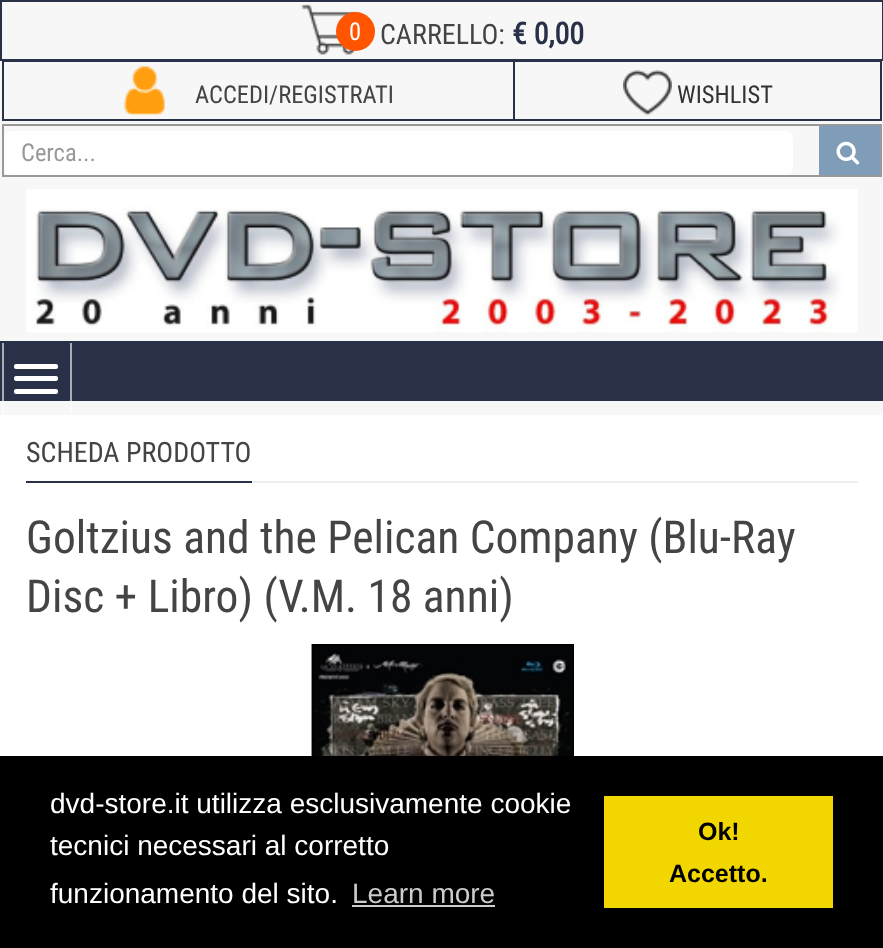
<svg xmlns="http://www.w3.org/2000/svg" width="883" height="948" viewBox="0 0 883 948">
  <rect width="100%" height="100%" fill="rgb(247,247,247)"/>
  <rect x="2" y="401" width="2" height="12" fill="rgb(252,252,252)"/>
  <rect x="70" y="401" width="2" height="12" fill="rgb(252,252,252)"/>
  <rect x="1" y="1" width="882" height="59" fill="none" stroke="rgb(40,49,72)" stroke-width="2"/>
  <rect x="2" y="61" width="880" height="1" fill="rgb(40,49,72)"/>
  <image x="300" y="4" width="58" height="51" href="pic1.png"/>
  <circle cx="355.5" cy="31.5" r="19.5" fill="rgb(255,85,1)"/>
  <text x="349" y="40" font-family="Roboto Condensed" font-size="24.5" fill="rgb(255,255,255)">0</text>
  <text x="380" y="44" font-family="Roboto Condensed" font-size="28" fill="rgb(68,68,68)">CARRELLO:</text>
  <text x="512" y="44" font-family="Roboto Condensed" font-size="30" font-weight="bold" fill="rgb(40,49,72)">€ 0,00</text>
  <rect x="513" y="61" width="2" height="60" fill="rgb(40,49,72)"/>
  <rect x="2" y="119" width="513" height="2" fill="rgb(40,49,72)"/>
  <rect x="2" y="61" width="2" height="60" fill="rgb(40,49,72)"/>
  <image x="123" y="65" width="42" height="51" href="pic2.png"/>
  <text x="195" y="103" font-family="Roboto Condensed" font-size="24.5" fill="rgb(68,68,68)">ACCEDI/REGISTRATI</text>
  <rect x="880" y="61" width="2" height="60" fill="rgb(40,49,72)"/>
  <rect x="515" y="119" width="367" height="2" fill="rgb(40,49,72)"/>
  <image x="623" y="70" width="49" height="46" href="pic3.png"/>
  <text x="677" y="103" font-family="Roboto Condensed" font-size="24.5" fill="rgb(51,51,51)">WISHLIST</text>
  <rect x="3" y="125" width="878" height="51" fill="none" stroke="rgb(153,153,153)" stroke-width="2"/>
  <rect x="4" y="131" width="789" height="44" rx="7" fill="rgb(255,255,255)"/>
  <text x="21" y="161" font-family="Roboto Condensed" font-size="24.5" fill="rgb(153,153,153)">Cerca...</text>
  <rect x="819" y="126" width="61" height="49" fill="rgb(127,157,185)"/>
  <image x="836" y="141" width="24" height="24" href="pic4.png"/>
  <image x="26" y="189" width="832" height="144" href="pic5.png"/>
  <rect x="0" y="341" width="883" height="60" fill="rgb(40,49,72)"/>
  <rect x="2" y="343" width="2" height="58" fill="rgb(169,173,182)"/>
  <rect x="70" y="343" width="2" height="58" fill="rgb(169,173,182)"/>
  <rect x="14" y="364" width="44" height="5" rx="2" fill="rgb(255,255,255)"/>
  <rect x="14" y="376" width="44" height="5" rx="2" fill="rgb(255,255,255)"/>
  <rect x="14" y="389" width="44" height="5" rx="2" fill="rgb(255,255,255)"/>
  <rect x="0" y="415" width="883" height="341" fill="rgb(255,255,255)"/>
  <rect x="252" y="481" width="606" height="2" fill="rgb(238,238,238)"/>
  <rect x="26" y="481" width="226" height="2" fill="rgb(40,49,72)"/>
  <text x="26" y="462" font-family="Roboto Condensed" font-size="28" fill="rgb(68,68,68)">SCHEDA PRODOTTO</text>
  <g font-family="Roboto Condensed" font-size="45.5" fill="rgb(68,68,68)">
    <text>
      <tspan x="26" y="553">Goltzius and the Pelican Company (Blu-Ray</tspan>
      <tspan x="26" y="612">Disc + Libro) (V.M. 18 anni)</tspan>
    </text>
  </g>
  <image x="311" y="644" width="263" height="112" href="pic6.png"/>
  <rect x="0" y="756" width="883" height="192" fill="rgb(0,0,0)"/>
  <g font-family="Liberation Sans" font-size="28" fill="rgb(255,255,255)">
    <text>
      <tspan x="50" y="813">dvd-store.it utilizza esclusivamente cookie</tspan>
      <tspan x="50" y="855">tecnici necessari al corretto</tspan>
      <tspan x="50" y="903">funzionamento del sito.</tspan>
    </text>
  </g>
  <text x="352" y="903" font-family="Liberation Sans" font-size="28" fill="rgb(204,204,204)">Learn more</text>
  <rect x="352" y="905" width="143" height="2" fill="rgb(204,204,204)"/>
  <rect x="604" y="796" width="229" height="112" fill="rgb(241,214,0)"/>
  <g font-family="Liberation Sans" font-size="25" font-weight="bold" fill="rgb(0,0,0)">
    <text x="698" y="840">Ok!</text>
    <text x="669" y="882">Accetto.</text>
  </g>
</svg>
